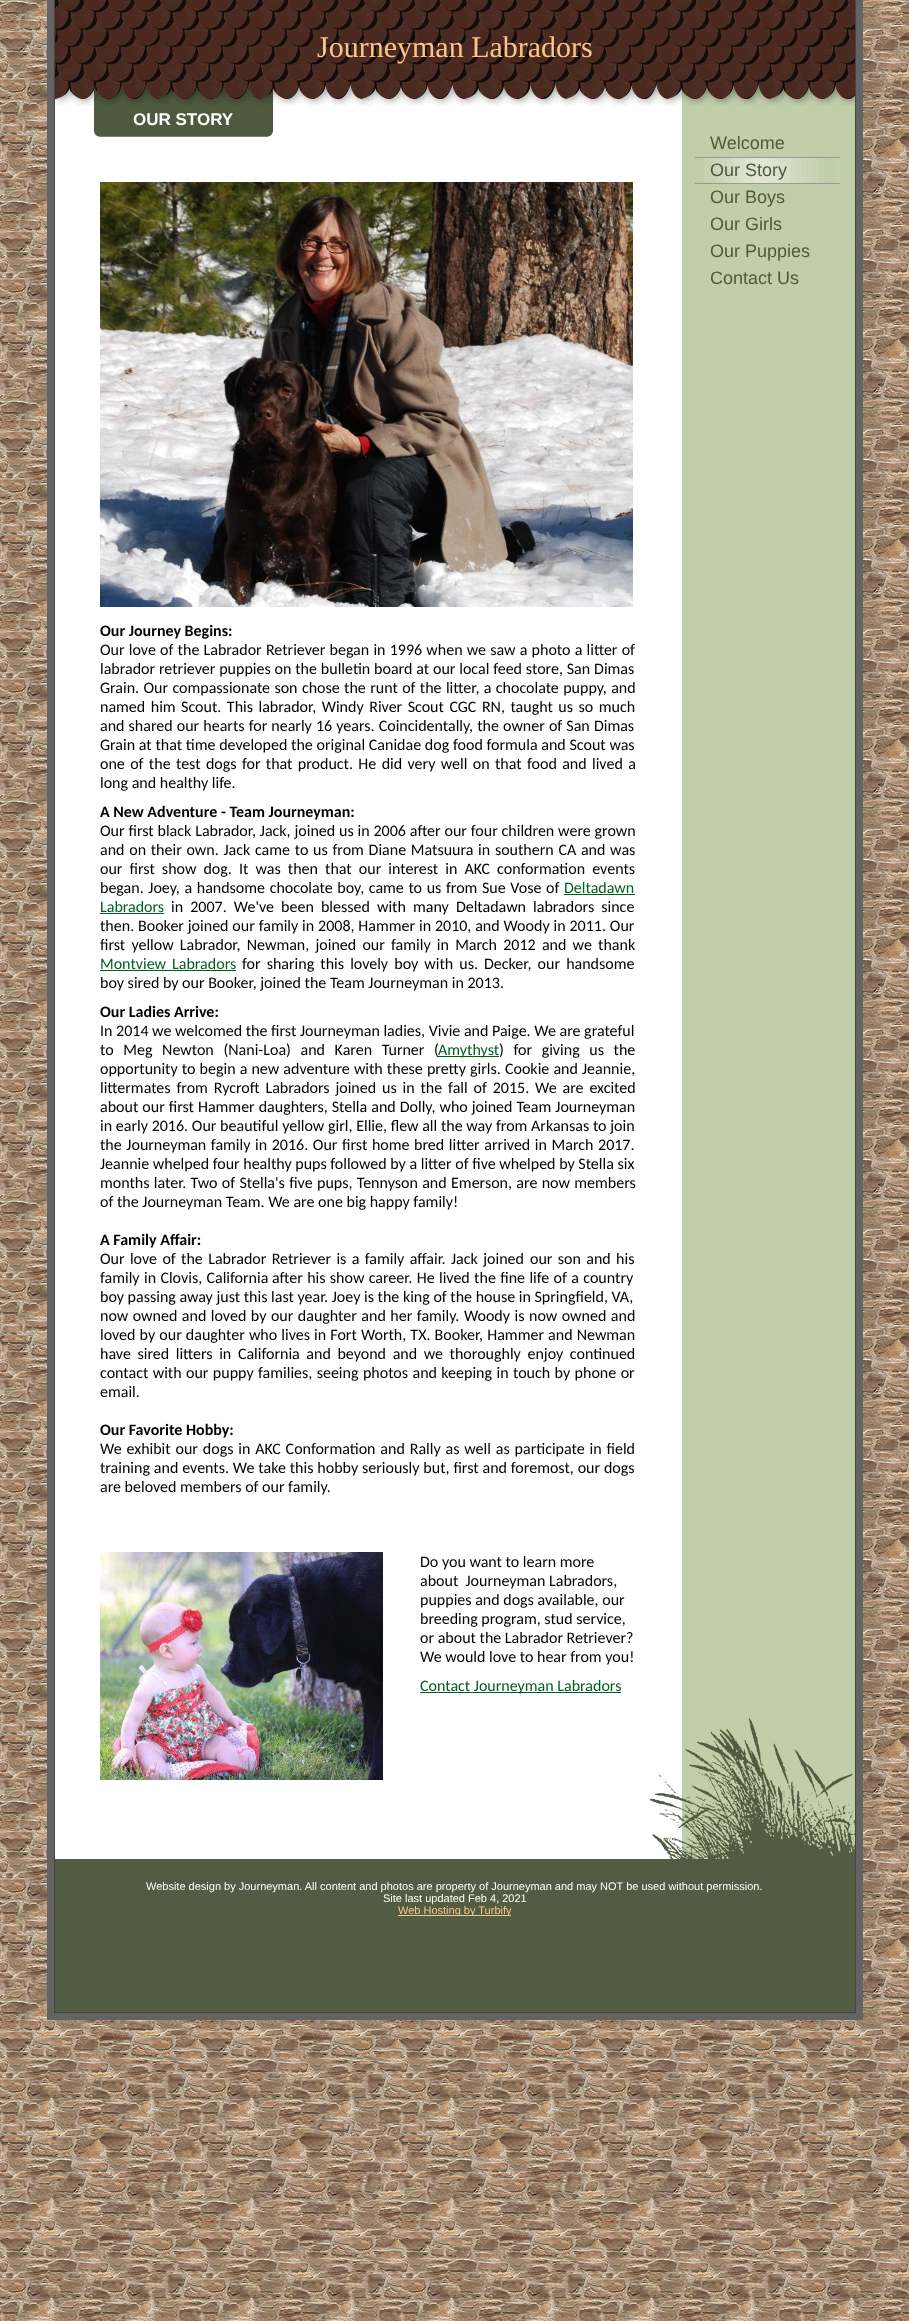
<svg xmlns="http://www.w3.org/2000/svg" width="909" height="2321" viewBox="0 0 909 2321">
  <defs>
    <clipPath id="clip1"><rect x="100" y="1880" width="710" height="36"/></clipPath>
  </defs>
  <rect width="100%" height="100%" fill="rgb(255,255,255)"/>
  <image x="0" y="0" width="909" height="2321" href="pic1.png"/>
  <image x="47" y="0" width="816" height="2013" href="pic2.png"/>
  <rect x="47" y="2013" width="816" height="7" fill="rgb(99,99,99)"/>
  <image x="55" y="0" width="800" height="64" href="pic3.png"/>
  <text x="317" y="57" font-family="Liberation Serif" font-size="30" fill="rgb(253,198,137)">Journeyman Labradors</text>
  <image x="55" y="64" width="800" height="50" href="pic4.png"/>
  <rect x="94" y="114" width="179" height="17" fill="rgb(79,89,62)"/>
  <image x="94" y="131" width="179" height="6" href="pic5.png"/>
  <text x="133" y="125" font-family="Liberation Sans" font-size="17" font-weight="bold" fill="rgb(255,255,255)">OUR STORY</text>
  <image x="100" y="182" width="533" height="425" href="pic6.png"/>
  <text x="100" y="636" font-family="Carlito" font-size="16" font-weight="bold" fill="rgb(0,0,0)">Our Journey Begins:</text>
  <g font-family="Carlito" font-size="16" fill="rgb(0,0,0)">
    <text>
      <tspan x="100" y="655" word-spacing="0.6">Our love of the Labrador Retriever began in 1996 when we saw a photo a litter of</tspan>
      <tspan x="100" y="674" word-spacing="0.25">labrador retriever puppies on the bulletin board at our local feed store, San Dimas</tspan>
      <tspan x="100" y="693" word-spacing="0.75">Grain. Our compassionate son chose the runt of the litter, a chocolate puppy, and</tspan>
      <tspan x="100" y="712" word-spacing="1.9">named him Scout. This labrador, Windy River Scout CGC RN, taught us so much</tspan>
      <tspan x="100" y="731" word-spacing="0.5">and shared our hearts for nearly 16 years. Coincidentally, the owner of San Dimas</tspan>
      <tspan x="100" y="750" word-spacing="0.1">Grain at that time developed the original Canidae dog food formula and Scout was</tspan>
      <tspan x="100" y="769" word-spacing="1.75">one of the test dogs for that product. He did very well on that food and lived a</tspan>
      <tspan x="100" y="788">long and healthy life.</tspan>
    </text>
  </g>
  <text x="100" y="817" font-family="Carlito" font-size="16" font-weight="bold" fill="rgb(0,0,0)">A New Adventure - Team Journeyman:</text>
  <g font-family="Carlito" font-size="16" fill="rgb(0,0,0)">
    <text>
      <tspan x="100" y="836" word-spacing="0.25">Our first black Labrador, Jack, joined us in 2006 after our four children were grown</tspan>
      <tspan x="100" y="855" word-spacing="1.1">and on their own. Jack came to us from Diane Matsuura in southern CA and was</tspan>
      <tspan x="100" y="874" word-spacing="3.5">our first show dog. It was then that our interest in AKC conformation events</tspan>
      <tspan x="100" y="893" word-spacing="1">began. Joey, a handsome chocolate boy, came to us from Sue Vose of</tspan>
    </text>
  </g>
  <text x="564" y="893" font-family="Carlito" font-size="16" fill="rgb(0,94,32)">Deltadawn</text>
  <rect x="564" y="894" width="71" height="1" fill="rgb(0,94,32)"/>
  <text x="100" y="912" font-family="Carlito" font-size="16" fill="rgb(0,94,32)">Labradors</text>
  <rect x="100" y="913" width="64" height="1" fill="rgb(0,94,32)"/>
  <g font-family="Carlito" font-size="16" fill="rgb(0,0,0)">
    <text x="171" y="912" word-spacing="3.5">in 2007. We've been blessed with many Deltadawn labradors since</text>
    <text>
      <tspan x="100" y="931" word-spacing="0.25">then. Booker joined our family in 2008, Hammer in 2010, and Woody in 2011. Our</tspan>
      <tspan x="100" y="950" word-spacing="2.6">first yellow Labrador, Newman, joined our family in March 2012 and we thank</tspan>
    </text>
  </g>
  <text x="100" y="969" word-spacing="2.5" font-family="Carlito" font-size="16" fill="rgb(0,94,32)">Montview Labradors</text>
  <rect x="100" y="970" width="136" height="1" fill="rgb(0,94,32)"/>
  <g font-family="Carlito" font-size="16" fill="rgb(0,0,0)">
    <text x="242" y="969" word-spacing="2.5">for sharing this lovely boy with us.</text>
    <text x="484" y="969" word-spacing="2.5">Decker, our handsome</text>
    <text x="100" y="988">boy sired by our Booker, joined the Team Journeyman in 2013.</text>
  </g>
  <text x="100" y="1017" font-family="Carlito" font-size="16" font-weight="bold" fill="rgb(0,0,0)">Our Ladies Arrive:</text>
  <g font-family="Carlito" font-size="16" fill="rgb(0,0,0)">
    <text>
      <tspan x="100" y="1036">In 2014 we welcomed the first Journeyman ladies, Vivie and Paige. We are grateful</tspan>
      <tspan x="100" y="1055" word-spacing="6">to Meg Newton (Nani-Loa) and Karen Turner (</tspan>
    </text>
  </g>
  <rect x="438" y="1056" width="61" height="1" fill="rgb(0,94,32)"/>
  <text x="438" y="1055" font-family="Carlito" font-size="16" fill="rgb(0,94,32)">Amythyst</text>
  <g font-family="Carlito" font-size="16" fill="rgb(0,0,0)">
    <text x="499" y="1055" word-spacing="6">) for giving us the</text>
    <text>
      <tspan x="100" y="1074" word-spacing="0.5">opportunity to begin a new adventure with these pretty girls. Cookie and Jeannie,</tspan>
      <tspan x="100" y="1093" word-spacing="2.25">littermates from Rycroft Labradors joined us in the fall of 2015. We are excited</tspan>
      <tspan x="100" y="1112" word-spacing="0.4">about our first Hammer daughters, Stella and Dolly, who joined Team Journeyman</tspan>
      <tspan x="100" y="1131" word-spacing="0.1">in early 2016. Our beautiful yellow girl, Ellie, flew all the way from Arkansas to join</tspan>
      <tspan x="100" y="1150" word-spacing="1">the Journeyman family in 2016. Our first home bred litter arrived in March 2017.</tspan>
      <tspan x="100" y="1169">Jeannie whelped four healthy pups followed by a litter of five whelped by Stella six</tspan>
      <tspan x="100" y="1188" word-spacing="0.75">months later. Two of Stella's five pups, Tennyson and Emerson, are now members</tspan>
      <tspan x="100" y="1207">of the Journeyman Team. We are one big happy family!</tspan>
    </text>
  </g>
  <text x="100" y="1245" font-family="Carlito" font-size="16" font-weight="bold" fill="rgb(0,0,0)">A Family Affair:</text>
  <g font-family="Carlito" font-size="16" fill="rgb(0,0,0)">
    <text x="100" y="1264" word-spacing="1.75">Our love of the Labrador Retriever is a family affair. Jack joined</text>
    <text x="530" y="1264" word-spacing="1.75">our son and his</text>
    <text x="100" y="1283" word-spacing="0.75">family in Clovis, California</text>
    <text x="272" y="1283" word-spacing="0.75">after his show career. He lived the fine life of a country</text>
    <text>
      <tspan x="100" y="1302">boy passing away just this last year. Joey is the king of the house in Springfield, VA,</tspan>
      <tspan x="100" y="1321" word-spacing="0.9">now owned and loved by our daughter and her family. Woody is now owned and</tspan>
      <tspan x="100" y="1340" word-spacing="0.5">loved by our daughter who lives in Fort Worth, TX. Booker, Hammer and Newman</tspan>
      <tspan x="100" y="1359" word-spacing="3">have sired litters in California and beyond and we thoroughly enjoy continued</tspan>
      <tspan x="100" y="1378" word-spacing="0.8">contact with our puppy families, seeing photos and keeping in touch by phone or</tspan>
      <tspan x="100" y="1397">email.</tspan>
    </text>
  </g>
  <text x="100" y="1435" font-family="Carlito" font-size="16" font-weight="bold" fill="rgb(0,0,0)">Our Favorite Hobby:</text>
  <g font-family="Carlito" font-size="16" fill="rgb(0,0,0)">
    <text>
      <tspan x="100" y="1454" word-spacing="1.25">We exhibit our dogs in AKC Conformation and Rally as well as participate in field</tspan>
      <tspan x="100" y="1473" word-spacing="0.25">training and events. We take this hobby seriously but, first and foremost, our dogs</tspan>
      <tspan x="100" y="1492">are beloved members of our family.</tspan>
    </text>
  </g>
  <image x="55" y="1715" width="800" height="144" href="pic9.png"/>
  <image x="100" y="1552" width="283" height="228" href="pic7.png"/>
  <g font-family="Carlito" font-size="16" fill="rgb(0,0,0)">
    <text xml:space="preserve"><tspan x="420" y="1567">Do you want to learn more</tspan><tspan x="420" y="1586">about  Journeyman Labradors,</tspan><tspan x="420" y="1605">puppies and dogs available, our</tspan><tspan x="420" y="1624">breeding program, stud service,</tspan><tspan x="420" y="1643">or about the Labrador Retriever?</tspan><tspan x="420" y="1662">We would love to hear from you!</tspan></text>
  </g>
  <rect x="420" y="1692" width="201" height="1" fill="rgb(0,94,32)"/>
  <text x="420" y="1691" font-family="Carlito" font-size="16" fill="rgb(0,94,32)">Contact Journeyman Labradors</text>
  <text x="710" y="149" font-family="Liberation Sans" font-size="18" fill="rgb(79,89,62)">Welcome</text>
  <image x="704" y="158" width="136" height="25" href="pic8.png"/>
  <rect x="695" y="157" width="145" height="1" fill="rgb(153,153,153)"/>
  <rect x="695" y="183" width="145" height="1" fill="rgb(153,153,153)"/>
  <g font-family="Liberation Sans" font-size="18" fill="rgb(79,89,62)">
    <text>
      <tspan x="710" y="176">Our Story</tspan>
      <tspan x="710" y="203">Our Boys</tspan>
      <tspan x="710" y="230">Our Girls</tspan>
      <tspan x="710" y="257">Our Puppies</tspan>
      <tspan x="710" y="284">Contact Us</tspan>
    </text>
  </g>
  <rect x="55" y="1859" width="800" height="153" fill="rgb(82,92,66)"/>
  <rect x="55" y="2012" width="800" height="1" fill="rgb(68,68,68)"/>
  <g font-family="Liberation Sans" font-size="11" fill="rgb(255,255,255)">
    <text x="146" y="1890">Website design by Journeyman. All content and photos are property of Journeyman and may NOT be used without permission.</text>
    <text x="383" y="1902">Site last updated Feb 4, 2021</text>
  </g>
  <rect x="398" y="1915" width="113" height="1" fill="rgb(253,198,137)"/>
  <g clip-path="url(#clip1)">
    <text x="398" y="1914" font-family="Liberation Sans" font-size="11" fill="rgb(253,198,137)">Web Hosting by Turbify</text>
  </g>
</svg>
